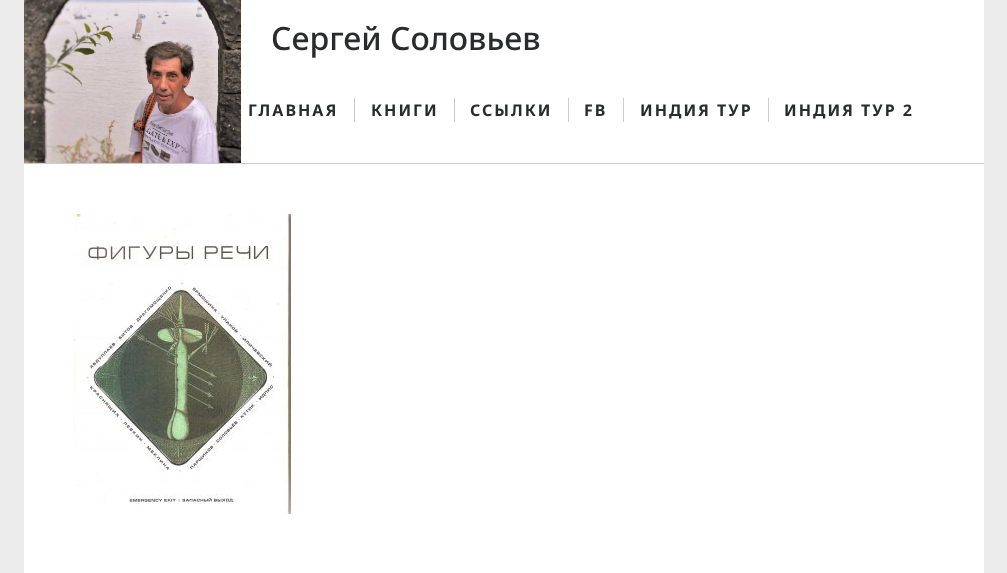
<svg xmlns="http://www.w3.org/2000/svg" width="1007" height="573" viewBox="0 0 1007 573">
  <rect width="100%" height="100%" fill="rgb(236,236,236)"/>
  <rect x="241" y="0" width="743" height="163" fill="rgb(255,255,255)"/>
  <rect x="24" y="163" width="960" height="1" fill="rgb(204,204,204)"/>
  <image x="24" y="0" width="217" height="163" href="pic1.png"/>
  <text x="271" y="50" font-family="Noto Sans" font-size="32" font-weight="500" fill="rgb(41,43,44)">Сергей Соловьев</text>
  <text x="248" y="116" font-family="Noto Sans" font-size="16" font-weight="bold" letter-spacing="2" fill="rgb(41,43,44)">ГЛАВНАЯ</text>
  <rect x="354" y="98" width="1" height="24" fill="rgb(204,204,204)"/>
  <text x="371" y="116" font-family="Noto Sans" font-size="16" font-weight="bold" letter-spacing="2" fill="rgb(41,43,44)">КНИГИ</text>
  <rect x="454" y="98" width="1" height="24" fill="rgb(204,204,204)"/>
  <text x="470" y="116" font-family="Noto Sans" font-size="16" font-weight="bold" letter-spacing="2" fill="rgb(41,43,44)">ССЫЛКИ</text>
  <rect x="568" y="98" width="1" height="24" fill="rgb(204,204,204)"/>
  <text x="584" y="116" font-family="Noto Sans" font-size="16" font-weight="bold" letter-spacing="2" fill="rgb(41,43,44)">FB</text>
  <rect x="623" y="98" width="1" height="24" fill="rgb(204,204,204)"/>
  <text x="640" y="116" font-family="Noto Sans" font-size="16" font-weight="bold" letter-spacing="2" fill="rgb(41,43,44)">ИНДИЯ ТУР</text>
  <rect x="768" y="98" width="1" height="24" fill="rgb(204,204,204)"/>
  <text x="784" y="116" font-family="Noto Sans" font-size="16" font-weight="bold" letter-spacing="2" fill="rgb(41,43,44)">ИНДИЯ ТУР 2</text>
  <rect x="24" y="164" width="960" height="409" fill="rgb(255,255,255)"/>
  <image x="74" y="214" width="217" height="300" href="pic2.png"/>
</svg>
